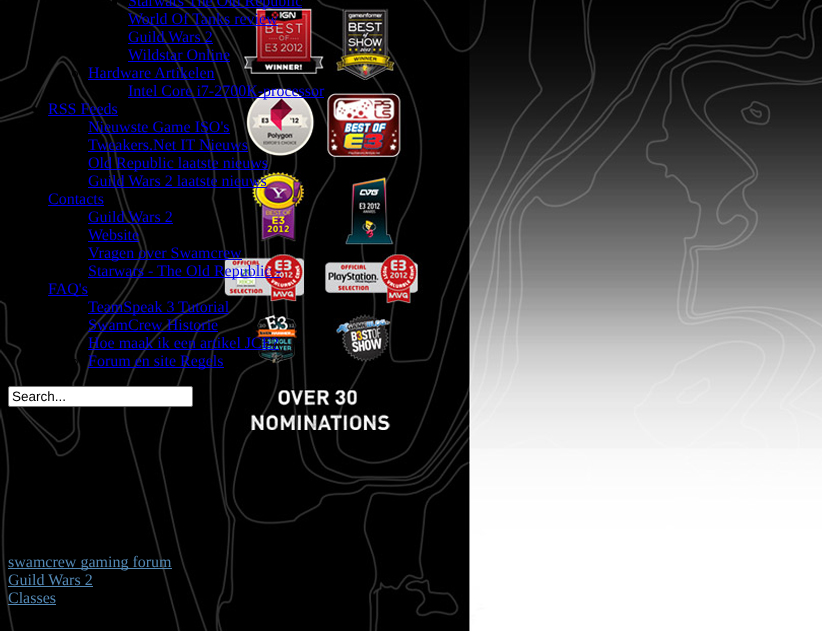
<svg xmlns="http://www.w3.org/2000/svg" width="822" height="631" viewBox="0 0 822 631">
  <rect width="100%" height="100%" fill="rgb(255,255,255)"/>
  <image x="0" y="0" width="822" height="631" href="pic1.png"/>
  <rect x="112" y="0" width="5" height="4" fill="rgb(0,0,0)"/>
  <rect x="128" y="7" width="174" height="1" fill="rgb(0,0,238)"/>
  <g font-family="Liberation Serif" font-size="16" fill="rgb(0,0,238)">
    <text>
      <tspan x="128" y="6">Starwars The Old Republic</tspan>
      <tspan x="128" y="24">World Of Tanks review</tspan>
    </text>
  </g>
  <rect x="128" y="25" width="150" height="1" fill="rgb(0,0,238)"/>
  <text x="128" y="42" font-family="Liberation Serif" font-size="16" fill="rgb(0,0,238)">Guild Wars 2</text>
  <rect x="128" y="43" width="85" height="1" fill="rgb(0,0,238)"/>
  <text x="128" y="60" font-family="Liberation Serif" font-size="16" fill="rgb(0,0,238)">Wildstar Online</text>
  <rect x="128" y="61" width="102" height="1" fill="rgb(0,0,238)"/>
  <circle cx="75" cy="74" r="2.5" fill="none" stroke="rgb(0,0,0)"/>
  <text x="88" y="78" font-family="Liberation Serif" font-size="16" fill="rgb(0,0,238)">Hardware Artikelen</text>
  <rect x="88" y="79" width="127" height="1" fill="rgb(0,0,238)"/>
  <rect x="128" y="97" width="196" height="1" fill="rgb(0,0,238)"/>
  <text x="128" y="96" font-family="Liberation Serif" font-size="16" fill="rgb(0,0,238)">Intel Core i7-2700K-processor</text>
  <circle cx="34.5" cy="109.5" r="2.5" fill="rgb(0,0,0)"/>
  <text x="48" y="114" font-family="Liberation Serif" font-size="16" fill="rgb(0,0,238)">RSS Feeds</text>
  <rect x="48" y="115" width="70" height="1" fill="rgb(0,0,238)"/>
  <text x="88" y="132" font-family="Liberation Serif" font-size="16" fill="rgb(0,0,238)">Nieuwste Game ISO's</text>
  <rect x="88" y="133" width="142" height="1" fill="rgb(0,0,238)"/>
  <text x="88" y="150" font-family="Liberation Serif" font-size="16" fill="rgb(0,0,238)">Tweakers.Net IT Nieuws</text>
  <rect x="88" y="151" width="160" height="1" fill="rgb(0,0,238)"/>
  <rect x="88" y="169" width="180" height="1" fill="rgb(0,0,238)"/>
  <g font-family="Liberation Serif" font-size="16" fill="rgb(0,0,238)">
    <text>
      <tspan x="88" y="168">Old Republic laatste nieuws</tspan>
      <tspan x="88" y="186">Guild Wars 2 laatste nieuws</tspan>
    </text>
  </g>
  <rect x="88" y="187" width="179" height="1" fill="rgb(0,0,238)"/>
  <text x="48" y="204" font-family="Liberation Serif" font-size="16" fill="rgb(0,0,238)">Contacts</text>
  <rect x="48" y="205" width="56" height="1" fill="rgb(0,0,238)"/>
  <text x="88" y="222" font-family="Liberation Serif" font-size="16" fill="rgb(0,0,238)">Guild Wars 2</text>
  <rect x="88" y="223" width="85" height="1" fill="rgb(0,0,238)"/>
  <text x="88" y="240" font-family="Liberation Serif" font-size="16" fill="rgb(0,0,238)">Website</text>
  <rect x="88" y="241" width="51" height="1" fill="rgb(0,0,238)"/>
  <rect x="88" y="259" width="154" height="1" fill="rgb(0,0,238)"/>
  <text x="88" y="258" font-family="Liberation Serif" font-size="16" fill="rgb(0,0,238)">Vragen over Swamcrew</text>
  <rect x="88" y="277" width="193" height="1" fill="rgb(0,0,238)"/>
  <text x="88" y="276" font-family="Liberation Serif" font-size="16" fill="rgb(0,0,238)">Starwars - The Old Republic -</text>
  <rect x="48" y="295" width="40" height="1" fill="rgb(0,0,238)"/>
  <text x="48" y="294" font-family="Liberation Serif" font-size="16" fill="rgb(0,0,238)">FAQ's</text>
  <rect x="88" y="313" width="141" height="1" fill="rgb(0,0,238)"/>
  <g font-family="Liberation Serif" font-size="16" fill="rgb(0,0,238)">
    <text>
      <tspan x="88" y="312">TeamSpeak 3 Tutorial</tspan>
      <tspan x="88" y="330">SwamCrew Historie</tspan>
    </text>
  </g>
  <rect x="88" y="331" width="130" height="1" fill="rgb(0,0,238)"/>
  <circle cx="75" cy="344" r="2.5" fill="none" stroke="rgb(0,0,0)"/>
  <text x="88" y="348" font-family="Liberation Serif" font-size="16" fill="rgb(0,0,238)">Hoe maak ik een artikel JCE?</text>
  <rect x="88" y="349" width="191" height="1" fill="rgb(0,0,238)"/>
  <circle cx="75" cy="362" r="2.5" fill="none" stroke="rgb(0,0,0)"/>
  <rect x="88" y="367" width="136" height="1" fill="rgb(0,0,238)"/>
  <text x="88" y="366" font-family="Liberation Serif" font-size="16" fill="rgb(0,0,238)">Forum en site Regels</text>
  <rect x="8.5" y="386.5" width="184" height="20" rx="1.5" fill="rgb(255,255,255)" stroke="rgb(118,118,118)"/>
  <text x="12" y="401" font-family="Liberation Sans" font-size="13.5" fill="rgb(0,0,0)">Search...</text>
  <rect x="8" y="568" width="164" height="1" fill="rgb(83,136,180)"/>
  <g font-family="Liberation Serif" font-size="16" fill="rgb(83,136,180)">
    <text>
      <tspan x="8" y="567">swamcrew gaming forum</tspan>
      <tspan x="8" y="585">Guild Wars 2</tspan>
    </text>
  </g>
  <rect x="8" y="586" width="85" height="1" fill="rgb(83,136,180)"/>
  <text x="8" y="603" font-family="Liberation Serif" font-size="16" fill="rgb(83,136,180)">Classes</text>
  <rect x="8" y="604" width="48" height="1" fill="rgb(83,136,180)"/>
</svg>
